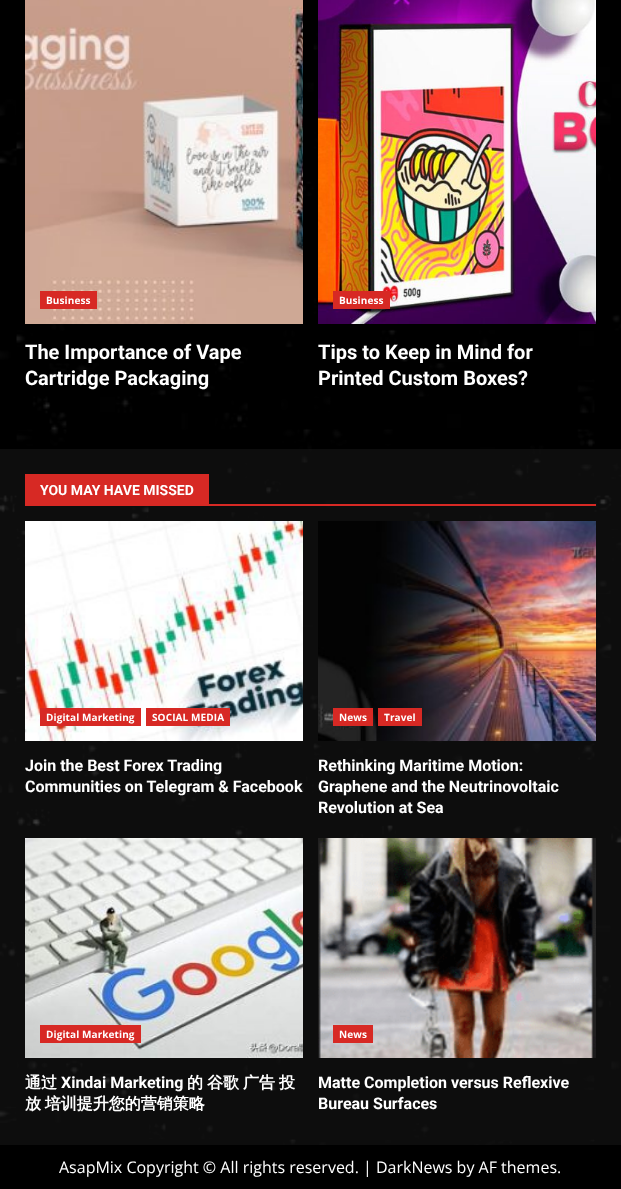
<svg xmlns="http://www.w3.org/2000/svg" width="621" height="1189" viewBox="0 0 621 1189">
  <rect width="100%" height="100%" fill="rgb(255,255,255)"/>
  <image x="0" y="0" width="621" height="1145" href="pic1.png"/>
  <image x="25" y="0" width="278" height="324" href="pic2.png"/>
  <rect x="40" y="291" width="57" height="18" fill="rgb(215,41,36)"/>
  <text x="46" y="304" font-family="Open Sans" font-size="10" font-weight="bold" letter-spacing="0.1" fill="rgb(255,255,255)">Business</text>
  <g font-family="Roboto" font-size="20" font-weight="bold" fill="rgb(255,255,255)">
    <text>
      <tspan x="25" y="359">The Importance of Vape</tspan>
      <tspan x="25" y="385">Cartridge Packaging</tspan>
    </text>
  </g>
  <image x="318" y="0" width="278" height="324" href="pic3.png"/>
  <rect x="333" y="291" width="57" height="18" fill="rgb(215,41,36)"/>
  <text x="339" y="304" font-family="Open Sans" font-size="10" font-weight="bold" letter-spacing="0.1" fill="rgb(255,255,255)">Business</text>
  <g font-family="Roboto" font-size="20" font-weight="bold" fill="rgb(255,255,255)">
    <text>
      <tspan x="318" y="359">Tips to Keep in Mind for</tspan>
      <tspan x="318" y="385">Printed Custom Boxes?</tspan>
    </text>
  </g>
  <rect x="0" y="449" width="621" height="696" fill="rgba(255,255,255,0.05)"/>
  <rect x="25" y="504" width="571" height="2" fill="rgb(215,41,36)"/>
  <rect x="25" y="474" width="184" height="30" fill="rgb(215,41,36)"/>
  <text x="40" y="495" font-family="Roboto" font-size="14" font-weight="bold" fill="rgb(255,255,255)">YOU MAY HAVE MISSED</text>
  <image x="25" y="521" width="278" height="220" href="pic4.png"/>
  <rect x="40" y="708" width="101" height="18" fill="rgb(215,41,36)"/>
  <text x="46" y="721" font-family="Open Sans" font-size="10" font-weight="bold" letter-spacing="0.1" fill="rgb(255,255,255)">Digital Marketing</text>
  <rect x="146" y="708" width="84" height="18" fill="rgb(215,41,36)"/>
  <text x="152" y="721" font-family="Open Sans" font-size="10" font-weight="bold" letter-spacing="0.1" fill="rgb(255,255,255)">SOCIAL MEDIA</text>
  <g font-family="Roboto" font-size="16" font-weight="bold" fill="rgb(255,255,255)">
    <text>
      <tspan x="25" y="771">Join the Best Forex Trading</tspan>
      <tspan x="25" y="792">Communities on Telegram &amp; Facebook</tspan>
    </text>
  </g>
  <image x="318" y="521" width="278" height="220" href="pic5.png"/>
  <rect x="333" y="708" width="40" height="18" fill="rgb(215,41,36)"/>
  <text x="339" y="721" font-family="Open Sans" font-size="10" font-weight="bold" letter-spacing="0.1" fill="rgb(255,255,255)">News</text>
  <rect x="378" y="708" width="44" height="18" fill="rgb(215,41,36)"/>
  <text x="384" y="721" font-family="Open Sans" font-size="10" font-weight="bold" letter-spacing="0.1" fill="rgb(255,255,255)">Travel</text>
  <g font-family="Roboto" font-size="16" font-weight="bold" fill="rgb(255,255,255)">
    <text>
      <tspan x="318" y="771">Rethinking Maritime Motion:</tspan>
      <tspan x="318" y="792">Graphene and the Neutrinovoltaic</tspan>
      <tspan x="318" y="813">Revolution at Sea</tspan>
    </text>
  </g>
  <image x="25" y="838" width="278" height="220" href="pic6.png"/>
  <rect x="40" y="1025" width="101" height="18" fill="rgb(215,41,36)"/>
  <text x="46" y="1038" font-family="Open Sans" font-size="10" font-weight="bold" letter-spacing="0.1" fill="rgb(255,255,255)">Digital Marketing</text>
  <text x="25" y="1088" font-family="WenQuanYi Zen Hei" font-size="16" font-weight="bold" fill="rgb(255,255,255)">通过</text>
  <text x="61" y="1088" font-family="Roboto" font-size="16" font-weight="bold" fill="rgb(255,255,255)">Xindai Marketing</text>
  <g font-family="WenQuanYi Zen Hei" font-size="16" font-weight="bold" fill="rgb(255,255,255)">
    <text x="187" y="1088">的</text>
    <text x="207" y="1088">谷歌</text>
    <text x="243" y="1088">广告</text>
    <text x="279" y="1088">投</text>
    <text x="25" y="1109" word-spacing="-1">放 培训提升您的营销策略</text>
  </g>
  <image x="318" y="838" width="278" height="220" href="pic7.png"/>
  <rect x="333" y="1025" width="40" height="18" fill="rgb(215,41,36)"/>
  <text x="339" y="1038" font-family="Open Sans" font-size="10" font-weight="bold" letter-spacing="0.1" fill="rgb(255,255,255)">News</text>
  <g font-family="Roboto" font-size="16" font-weight="bold" fill="rgb(255,255,255)">
    <text>
      <tspan x="318" y="1088">Matte Completion versus Reflexive</tspan>
      <tspan x="318" y="1109">Bureau Surfaces</tspan>
    </text>
  </g>
  <rect x="0" y="1145" width="621" height="44" fill="rgb(0,0,0)"/>
  <text x="59" y="1173" font-family="Open Sans" font-size="16" fill="rgb(255,255,255)">AsapMix Copyright © All rights reserved. | DarkNews by AF themes.</text>
</svg>
